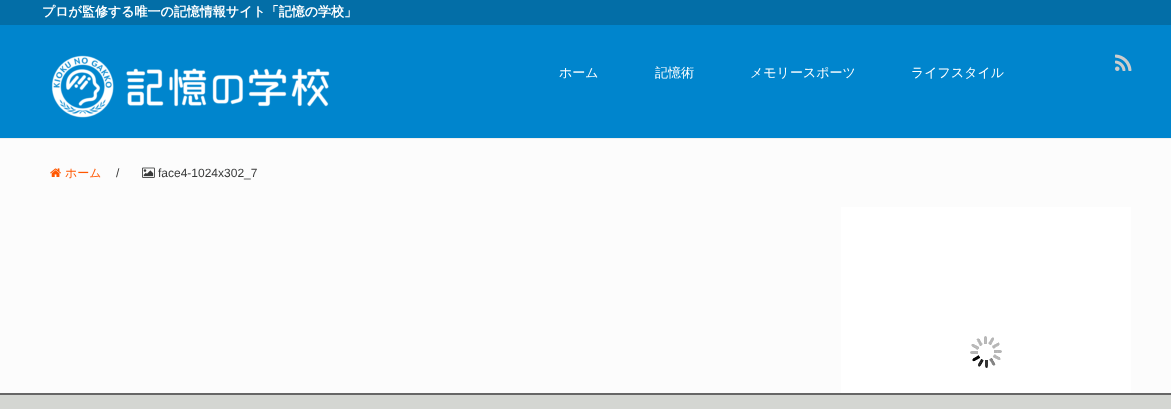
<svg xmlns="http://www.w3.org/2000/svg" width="1171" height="409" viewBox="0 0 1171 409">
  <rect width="100%" height="100%" fill="rgb(0,133,205)"/>
  <rect x="0" y="138" width="1171" height="1" fill="rgb(239,239,239)"/>
  <rect x="0" y="0" width="1171" height="25" fill="rgb(3,110,167)"/>
  <text x="42" y="16" font-family="WenQuanYi Zen Hei" font-size="13" font-weight="bold" fill="rgb(255,255,255)">プロが監修する唯一の記憶情報サイト「記憶の学校」</text>
  <image x="51" y="55" width="279" height="63" href="pic1.png"/>
  <g font-family="WenQuanYi Zen Hei" font-size="13" font-weight="500" fill="rgb(255,255,255)">
    <text x="559" y="77">ホーム</text>
    <text x="655" y="77">記憶術</text>
    <text x="750" y="77">メモリースポーツ</text>
    <text x="911" y="77">ライフスタイル</text>
  </g>
  <image x="1115" y="54" width="17" height="17" href="pic2.png"/>
  <rect x="0" y="139" width="1171" height="254" fill="rgb(252,252,252)"/>
  <rect x="0" y="395" width="1171" height="14" fill="rgb(212,214,210)"/>
  <image x="50" y="168" width="11" height="9" href="pic3.png"/>
  <text x="65" y="177" font-family="WenQuanYi Zen Hei" font-size="12" font-weight="500" fill="rgb(255,87,0)">ホーム</text>
  <text x="116" y="177" font-family="Liberation Sans" font-size="12" fill="rgb(56,57,57)">/</text>
  <image x="142" y="167" width="13" height="11" href="pic4.png"/>
  <text x="158" y="177" font-family="Liberation Sans" font-size="12" fill="rgb(56,57,57)">face4-1024x302_7</text>
  <rect x="841" y="207" width="290" height="186" fill="rgb(255,255,255)"/>
  <image x="970" y="336" width="32" height="32" href="pic5.png"/>
  <rect x="0" y="393" width="1171" height="2" fill="rgb(102,102,102)"/>
</svg>
